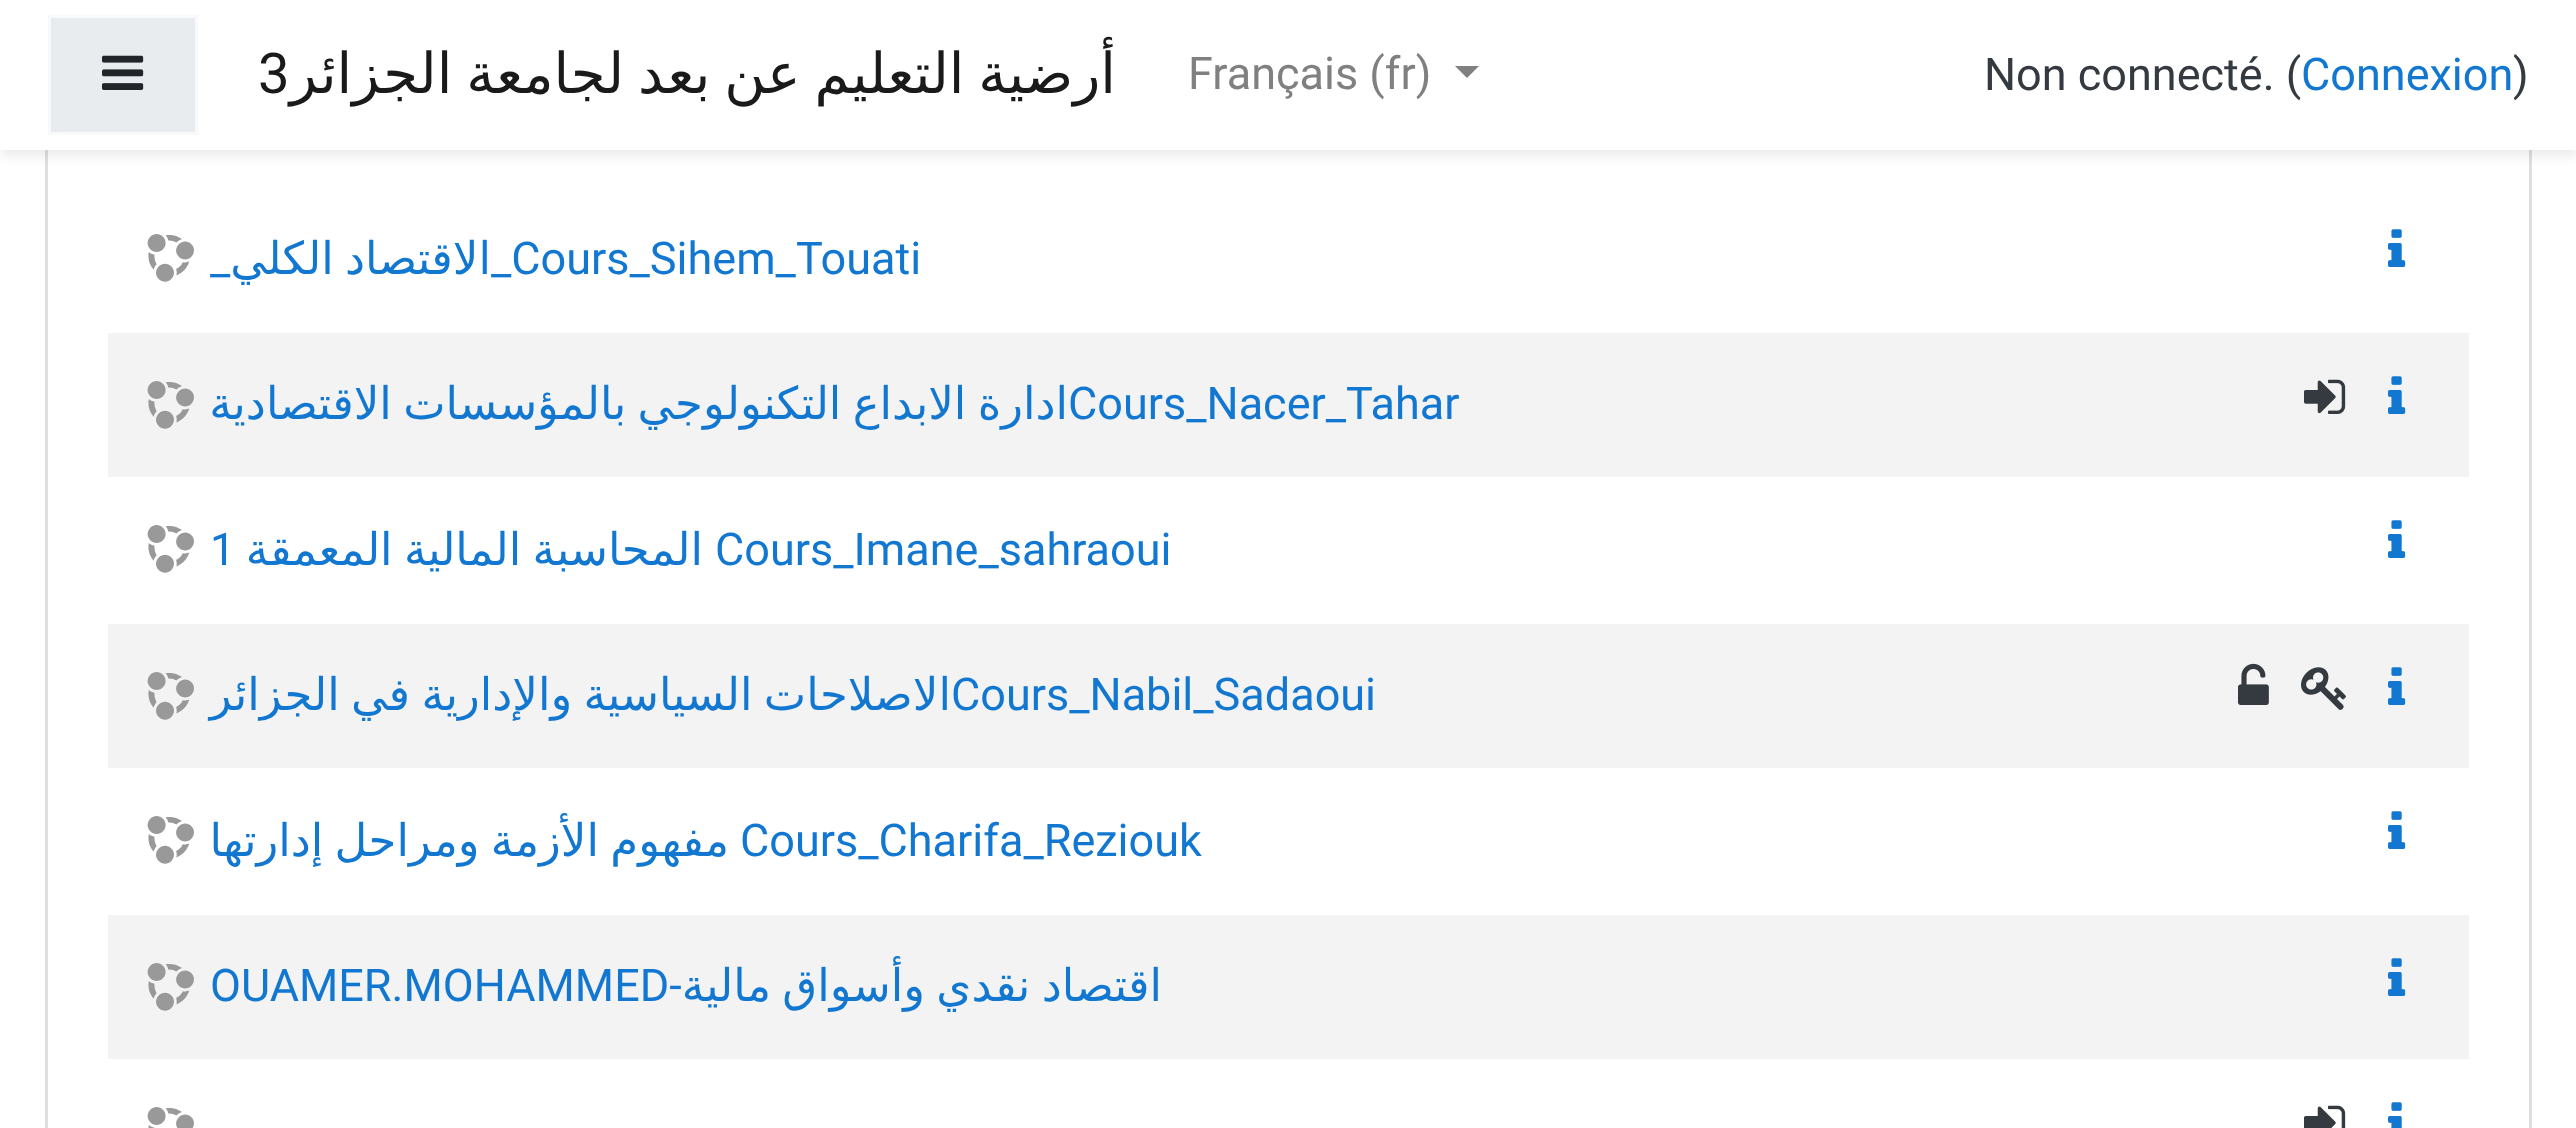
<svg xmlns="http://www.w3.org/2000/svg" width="2576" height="1128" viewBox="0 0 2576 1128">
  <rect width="100%" height="100%" fill="rgb(255,255,255)"/>
  <rect x="46.5" y="-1.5" width="2484" height="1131" fill="none" stroke="rgb(223,223,223)" stroke-width="3"/>
  <rect x="0" y="6" width="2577" height="150" fill="rgba(0,0,0,0.08)" filter="blur(6px)"/>
  <rect x="0" y="0" width="2576" height="150" fill="rgb(255,255,255)"/>
  <text x="2513" y="90" font-family="Roboto" font-size="45" fill="rgb(52,58,64)">)</text>
  <text x="2301" y="90" font-family="Roboto" font-size="45" fill="rgb(17,119,209)">Connexion</text>
  <text x="1984" y="90" font-family="Roboto" font-size="45" fill="rgb(52,58,64)">Non connecté. (</text>
  <path d="M1455 66H1479L1467 78Z" fill="rgb(128,128,128)"/>
  <text x="1188" y="89" font-family="Roboto" font-size="45" fill="rgb(128,128,128)">Français (fr)</text>
  <text x="1116" y="93" word-spacing="-4" font-family="DejaVu Sans" font-size="56.25" direction="rtl" fill="rgb(26,26,26)">أرضية التعليم عن بعد لجامعة الجزائر</text>
  <text x="258" y="93" font-family="Roboto" font-size="56.25" fill="rgb(26,26,26)">3</text>
  <rect x="49.5" y="16.5" width="147" height="117" fill="rgb(233,236,239)" stroke="rgb(248,249,250)" stroke-width="3"/>
  <image x="102" y="55" width="42" height="35" href="pic1.png"/>
  <image x="2388" y="229" width="18" height="38" href="pic2.png"/>
  <image x="147" y="234" width="47" height="48" href="pic3.png"/>
  <text x="491" y="274" font-family="Roboto" font-size="45" fill="rgb(17,119,209)">_Cours_Sihem_Touati</text>
  <text x="491" y="274" word-spacing="-3" font-family="DejaVu Sans" font-size="45" direction="rtl" fill="rgb(17,119,209)">الاقتصاد الكلي</text>
  <text x="210" y="274" font-family="Roboto" font-size="45" fill="rgb(17,119,209)">_</text>
  <rect x="108" y="333" width="2361" height="144" fill="rgb(243,243,243)"/>
  <image x="2388" y="376" width="18" height="38" href="pic4.png"/>
  <image x="2304" y="379" width="42" height="35" href="pic5.png"/>
  <image x="147" y="381" width="47" height="48" href="pic6.png"/>
  <text x="1068" y="419" word-spacing="-3" font-family="DejaVu Sans" font-size="45" direction="rtl" fill="rgb(17,119,209)">ادارة الابداع التكنولوجي بالمؤسسات الاقتصادية</text>
  <text x="1068" y="419" font-family="Roboto" font-size="45" fill="rgb(17,119,209)">Cours_Nacer_Tahar</text>
  <image x="2388" y="520" width="18" height="38" href="pic2.png"/>
  <image x="147" y="525" width="47" height="48" href="pic7.png"/>
  <text x="715" y="565" font-family="Roboto" font-size="45" fill="rgb(17,119,209)">Cours_Imane_sahraoui</text>
  <text x="703" y="565" word-spacing="-3" font-family="DejaVu Sans" font-size="45" direction="rtl" fill="rgb(17,119,209)">المحاسبة المالية المعمقة</text>
  <text x="210" y="565" font-family="Roboto" font-size="45" fill="rgb(17,119,209)">1</text>
  <rect x="108" y="624" width="2361" height="144" fill="rgb(243,243,243)"/>
  <image x="2388" y="667" width="18" height="38" href="pic4.png"/>
  <image x="2301" y="667" width="45" height="43" href="pic8.png"/>
  <image x="2238" y="663" width="31" height="42" href="pic9.png"/>
  <image x="147" y="672" width="47" height="48" href="pic6.png"/>
  <text x="951" y="710" word-spacing="-3" font-family="DejaVu Sans" font-size="45" direction="rtl" fill="rgb(17,119,209)">الاصلاحات السياسية والإدارية في الجزائر</text>
  <text x="951" y="710" font-family="Roboto" font-size="45" fill="rgb(17,119,209)">Cours_Nabil_Sadaoui</text>
  <image x="2388" y="811" width="18" height="38" href="pic2.png"/>
  <image x="147" y="816" width="47" height="48" href="pic3.png"/>
  <text x="740" y="856" font-family="Roboto" font-size="45" fill="rgb(17,119,209)">Cours_Charifa_Reziouk</text>
  <text x="729" y="856" word-spacing="-3" font-family="DejaVu Sans" font-size="45" direction="rtl" fill="rgb(17,119,209)">مفهوم الأزمة ومراحل إدارتها</text>
  <rect x="108" y="915" width="2361" height="144" fill="rgb(243,243,243)"/>
  <image x="2388" y="958" width="18" height="38" href="pic4.png"/>
  <image x="147" y="963" width="47" height="48" href="pic6.png"/>
  <text x="1162" y="1001" word-spacing="-3" font-family="DejaVu Sans" font-size="45" direction="rtl" fill="rgb(17,119,209)">اقتصاد نقدي وأسواق مالية</text>
  <text x="210" y="1001" font-family="Roboto" font-size="45" fill="rgb(17,119,209)">OUAMER.MOHAMMED-</text>
  <image x="2388" y="1102" width="14" height="26" href="pic10.png"/>
  <image x="2304" y="1105" width="42" height="23" href="pic11.png"/>
  <image x="147" y="1107" width="47" height="21" href="pic12.png"/>
</svg>
